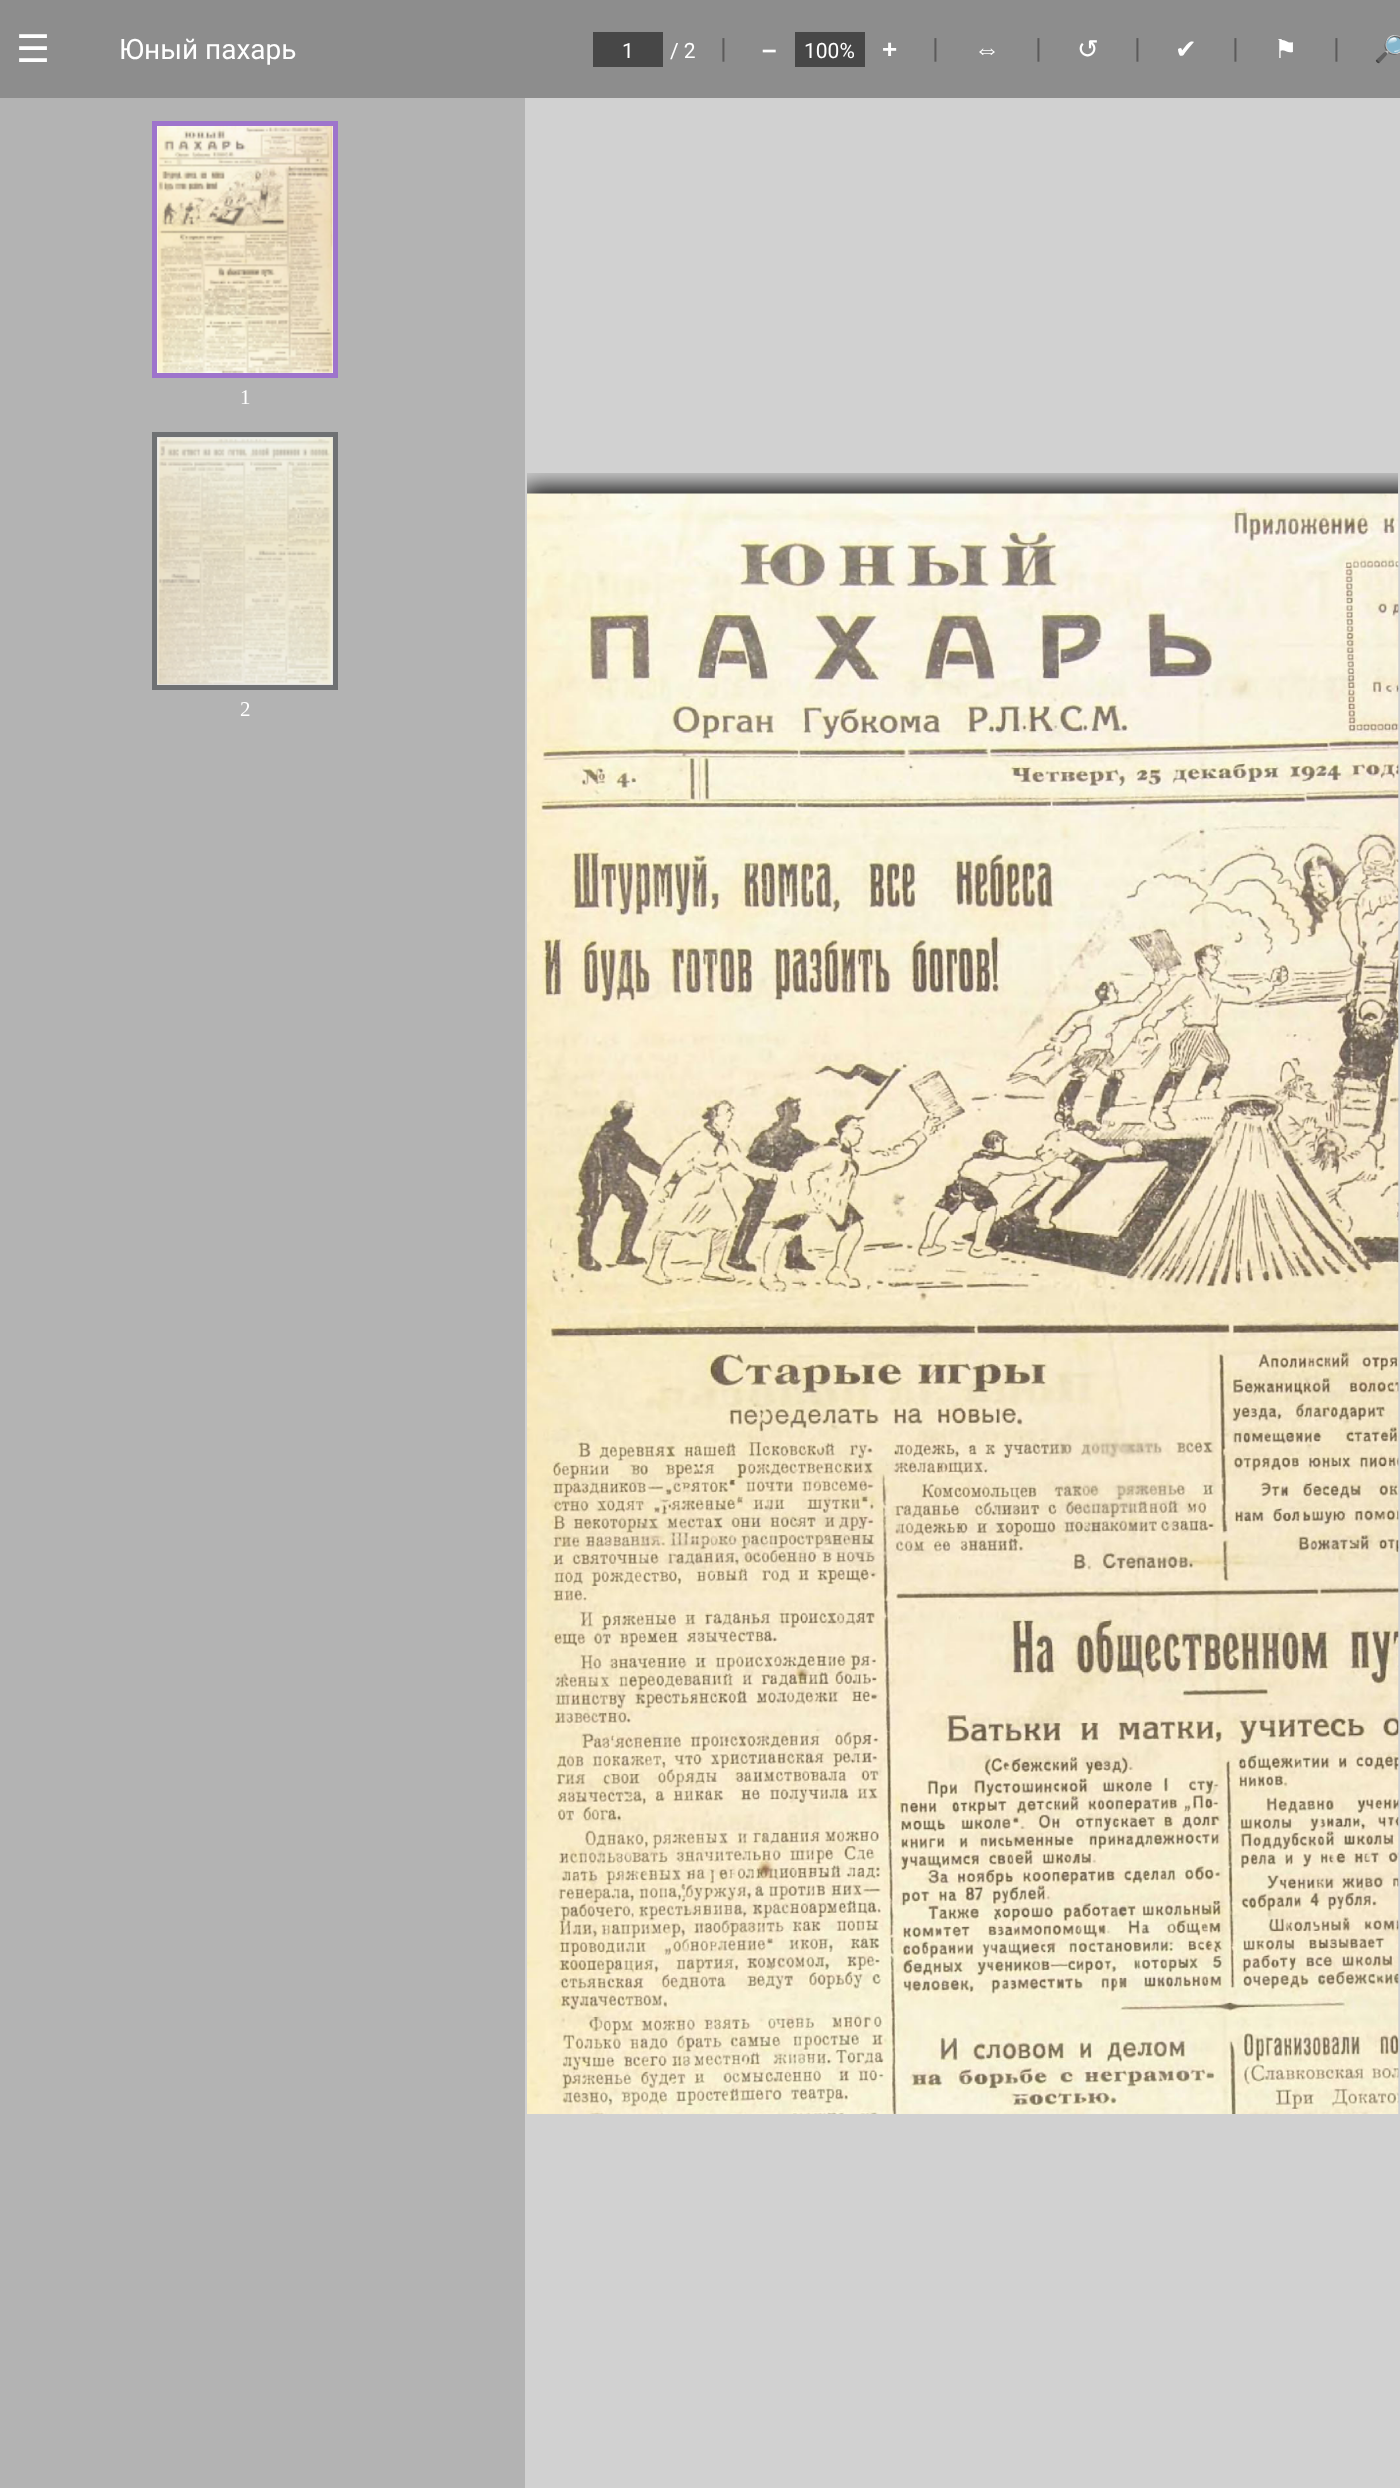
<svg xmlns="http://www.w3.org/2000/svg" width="1400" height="2488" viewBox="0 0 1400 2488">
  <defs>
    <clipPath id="clip1"><rect x="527" y="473" width="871" height="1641"/></clipPath>
  </defs>
  <rect width="100%" height="100%" fill="rgb(141,141,141)"/>
  <text x="16" y="62" font-family="DejaVu Sans" font-size="38" fill="rgb(255,255,255)">☰</text>
  <text x="119" y="59" font-family="Roboto" font-size="28" fill="rgb(255,255,255)">Юный пахарь</text>
  <rect x="593" y="32" width="70" height="35" fill="rgb(71,71,71)"/>
  <g font-family="Roboto" font-size="21" fill="rgb(255,255,255)">
    <text x="622" y="58">1</text>
    <text x="670" y="58">/ 2</text>
  </g>
  <text x="720" y="58" font-family="Roboto" font-size="28" fill="rgb(92,91,91)">|</text>
  <text x="762" y="58" font-family="Liberation Sans" font-size="26" font-weight="bold" fill="rgb(255,255,255)">–</text>
  <rect x="795" y="32" width="70" height="35" fill="rgb(71,71,71)"/>
  <text x="804" y="58" font-family="Roboto" font-size="21" fill="rgb(255,255,255)">100%</text>
  <text x="882" y="58" font-family="Liberation Sans" font-size="26" font-weight="bold" fill="rgb(255,255,255)">+</text>
  <text x="932" y="58" font-family="Roboto" font-size="28" fill="rgb(92,91,91)">|</text>
  <text x="974" y="58" font-family="Liberation Sans" font-size="26" fill="rgb(255,255,255)">⇔</text>
  <text x="1035" y="58" font-family="Roboto" font-size="28" fill="rgb(92,91,91)">|</text>
  <text x="1077" y="58" font-family="DejaVu Sans" font-size="26" fill="rgb(255,255,255)">↺</text>
  <text x="1134" y="58" font-family="Roboto" font-size="28" fill="rgb(92,91,91)">|</text>
  <text x="1175" y="58" font-family="DejaVu Sans" font-size="26" fill="rgb(255,255,255)">✔</text>
  <text x="1232" y="58" font-family="Roboto" font-size="28" fill="rgb(92,91,91)">|</text>
  <text x="1274" y="58" font-family="DejaVu Sans" font-size="26" fill="rgb(255,255,255)">⚑</text>
  <text x="1333" y="58" font-family="Roboto" font-size="28" fill="rgb(92,91,91)">|</text>
  <text x="1374" y="58" font-family="Noto Color Emoji" font-size="26" fill="rgb(255,255,255)">🔎</text>
  <rect x="0" y="98" width="525" height="2390" fill="rgb(179,179,179)"/>
  <rect x="154.5" y="123.5" width="181" height="252" fill="rgb(255,255,255)" stroke="rgb(158,116,204)" stroke-width="5"/>
  <image x="157" y="126" width="176" height="247" href="pic1.png"/>
  <text x="240" y="404" font-family="Liberation Serif" font-size="21" fill="rgb(255,255,255)">1</text>
  <rect x="154.5" y="434.5" width="181" height="253" fill="rgb(225,225,225)" stroke="rgb(111,113,115)" stroke-width="5"/>
  <image x="157" y="437" width="176" height="248" href="pic2.png"/>
  <text x="240" y="716" font-family="Liberation Serif" font-size="21" fill="rgb(255,255,255)">2</text>
  <rect x="525" y="98" width="875" height="2390" fill="rgb(209,209,209)"/>
  <g clip-path="url(#clip1)">
    <rect x="522" y="488" width="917" height="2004" fill="rgb(0,0,0)" filter="blur(13px)"/>
  </g>
  <image x="527" y="493" width="872" height="1621" href="pic3.png"/>
</svg>
